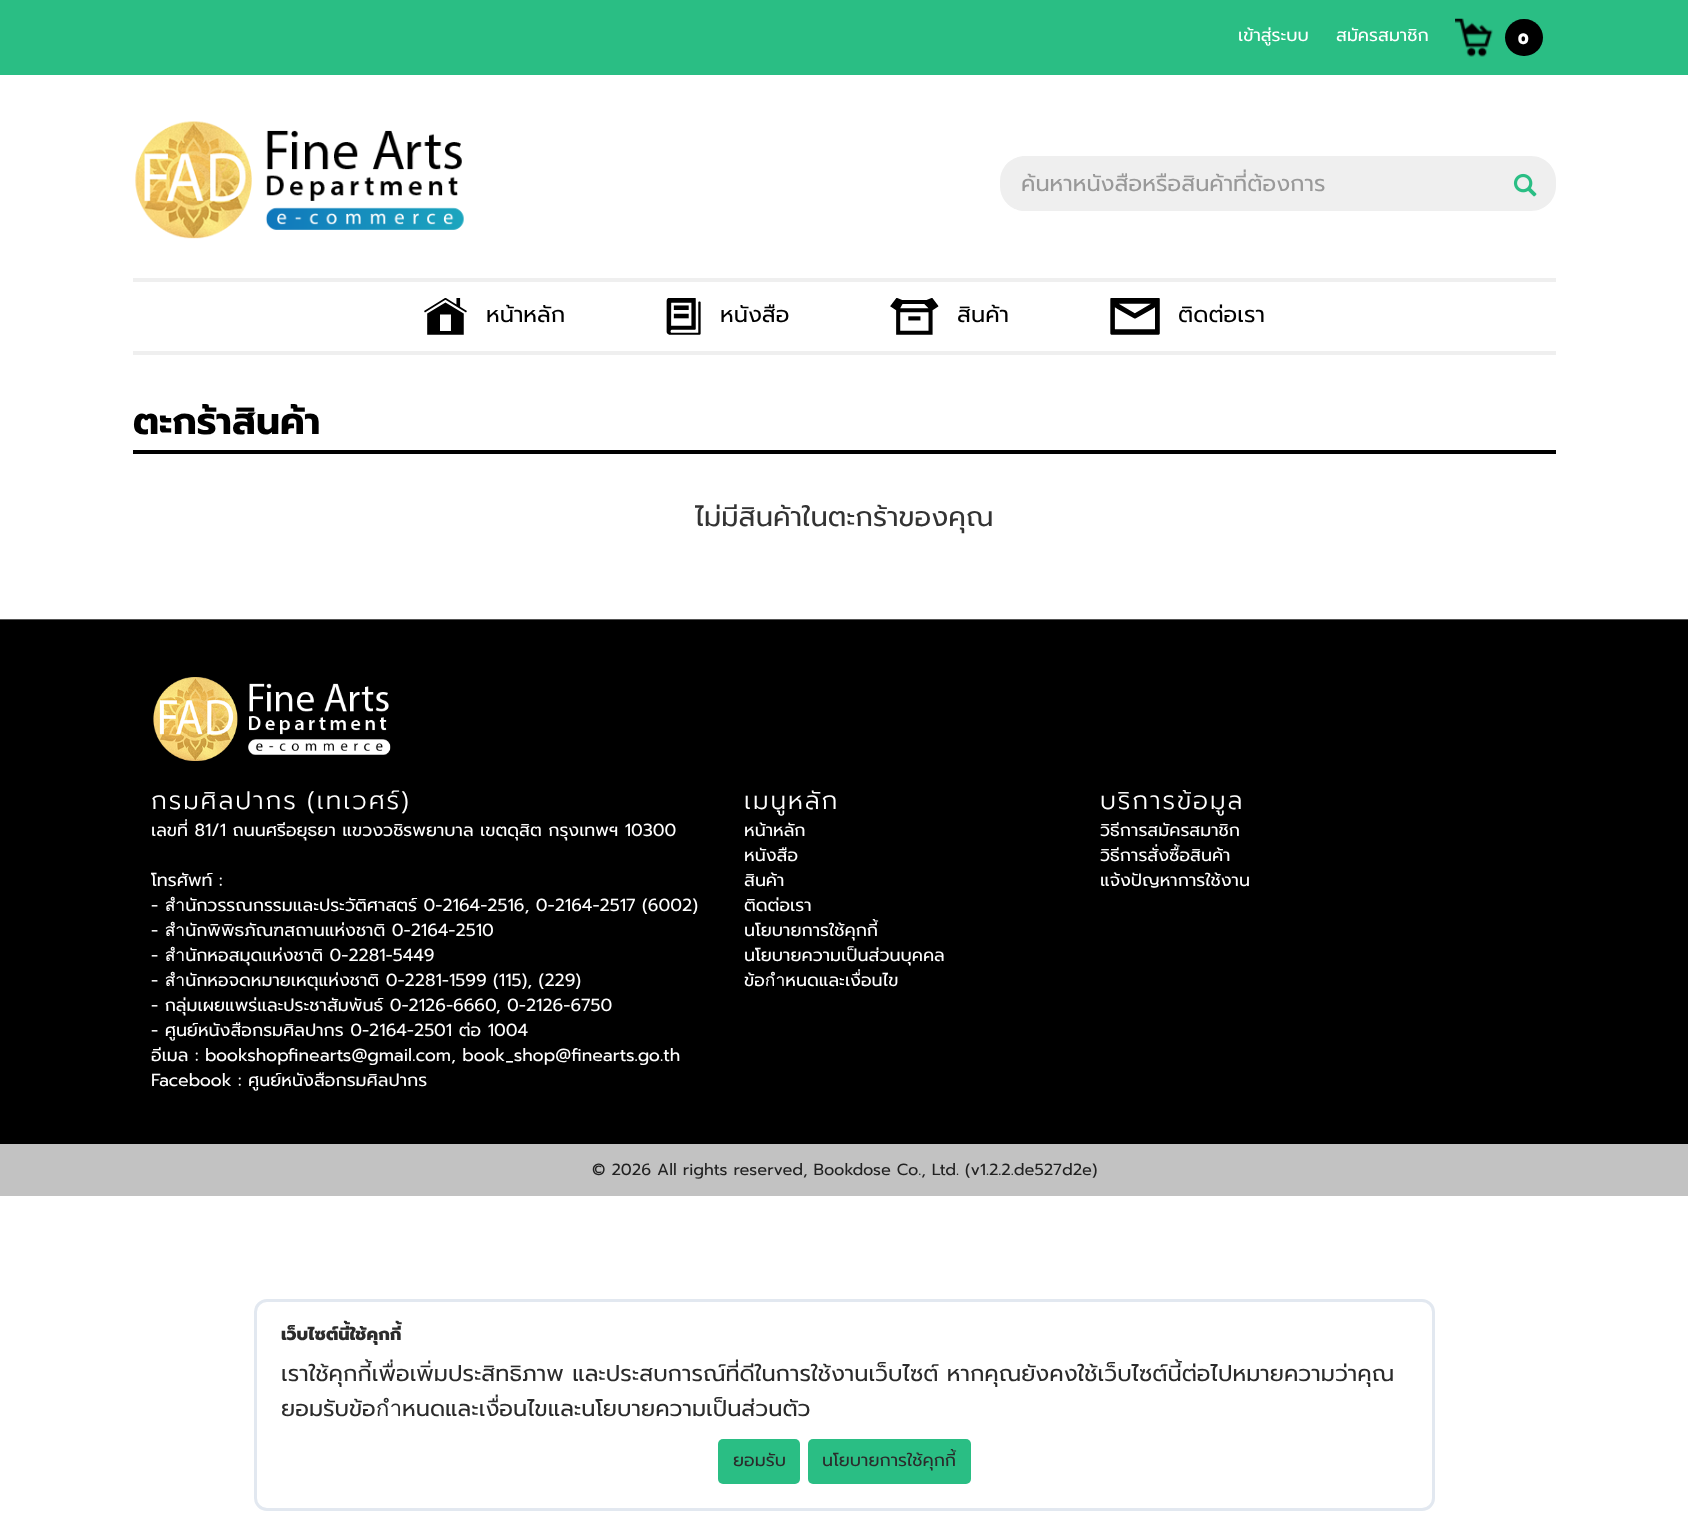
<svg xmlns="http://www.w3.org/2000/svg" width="1688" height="1529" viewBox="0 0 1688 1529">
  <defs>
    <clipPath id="clip1"><rect x="1020" y="166" width="474" height="35"/></clipPath>
  </defs>
  <rect width="100%" height="100%" fill="rgb(255,255,255)"/>
  <rect x="0" y="0" width="1688" height="75" fill="rgb(42,190,132)"/>
  <g font-family="Prompt" font-size="17.5" fill="rgb(255,255,255)">
    <text x="1238" y="41">เข้าสู่ระบบ</text>
    <text x="1336" y="41">สมัครสมาชิก</text>
  </g>
  <image x="1455" y="18" width="38" height="39" href="pic1.png"/>
  <rect x="1505" y="19" width="38" height="37" rx="18.5" fill="rgb(0,0,0)"/>
  <text x="1518" y="44" font-family="Prompt" font-size="15" font-weight="800" fill="rgb(255,255,255)">0</text>
  <image x="135" y="121" width="329" height="118" href="pic2.png"/>
  <path d="M1025 156H1514V211H1025C1011 211 1000 200 1000 186V181C1000 167 1011 156 1025 156Z" fill="rgb(239,239,239)"/>
  <g clip-path="url(#clip1)">
    <text x="1021" y="191" font-family="Prompt" font-size="22.5" fill="rgb(153,153,153)">ค้นหาหนังสือหรือสินค้าที่ต้องการ</text>
  </g>
  <path d="M1514 156H1531C1545 156 1556 167 1556 181V186C1556 200 1545 211 1531 211H1514Z" fill="rgb(239,239,239)"/>
  <image x="1513" y="173" width="24" height="24" href="pic3.png"/>
  <rect x="133" y="278" width="1423" height="4" fill="rgb(239,239,239)"/>
  <rect x="133" y="351" width="1423" height="4" fill="rgb(239,239,239)"/>
  <image x="424" y="298" width="43" height="37" href="pic4.png"/>
  <text x="486" y="322" font-family="Prompt" font-size="22.5" fill="rgb(0,0,0)">หน้าหลัก</text>
  <image x="666" y="298" width="35" height="37" href="pic5.png"/>
  <text x="720" y="322" font-family="Prompt" font-size="22.5" fill="rgb(0,0,0)">หนังสือ</text>
  <image x="890" y="298" width="49" height="37" href="pic6.png"/>
  <text x="957" y="322" font-family="Prompt" font-size="22.5" fill="rgb(0,0,0)">สินค้า</text>
  <image x="1110" y="298" width="50" height="37" href="pic7.png"/>
  <text x="1178" y="322" font-family="Prompt" font-size="22.5" fill="rgb(0,0,0)">ติดต่อเรา</text>
  <rect x="133" y="450" width="1423" height="4" fill="rgb(0,0,0)"/>
  <text x="133" y="434" font-family="Prompt" font-size="37.5" font-weight="bold" fill="rgb(0,0,0)">ตะกร้าสินค้า</text>
  <text x="695" y="526" font-family="Prompt" font-size="27.5" fill="rgb(51,51,51)">ไม่มีสินค้าในตะกร้าของคุณ</text>
  <rect x="0" y="620" width="1688" height="524" fill="rgb(0,0,0)"/>
  <rect x="0" y="619" width="1688" height="1" fill="rgb(85,85,85)"/>
  <image x="153" y="677" width="238" height="84" href="pic8.png"/>
  <text x="151" y="809" word-spacing="-2" font-family="Prompt" font-size="25" font-weight="300" letter-spacing="1.9" fill="rgb(255,255,255)">กรมศิลปากร (เทเวศร์)</text>
  <g font-family="Prompt" font-size="17.5" fill="rgb(255,255,255)">
    <text x="151" y="836">เลขที่ 81/1 ถนนศรีอยุธยา แขวงวชิรพยาบาล เขตดุสิต กรุงเทพฯ 10300</text>
    <text>
      <tspan x="151" y="886">โทรศัพท์ :</tspan>
      <tspan x="151" y="911">- สำนักวรรณกรรมและประวัติศาสตร์ 0-2164-2516, 0-2164-2517 (6002)</tspan>
      <tspan x="151" y="936">- สำนักพิพิธภัณฑสถานแห่งชาติ 0-2164-2510</tspan>
      <tspan x="151" y="961">- สำนักหอสมุดแห่งชาติ 0-2281-5449</tspan>
      <tspan x="151" y="986">- สำนักหอจดหมายเหตุแห่งชาติ 0-2281-1599 (115), (229)</tspan>
      <tspan x="151" y="1011">- กลุ่มเผยแพร่และประชาสัมพันธ์ 0-2126-6660, 0-2126-6750</tspan>
      <tspan x="151" y="1036">- ศูนย์หนังสือกรมศิลปากร 0-2164-2501 ต่อ 1004</tspan>
      <tspan x="151" y="1061">อีเมล : bookshopfinearts@gmail.com, book_shop@finearts.go.th</tspan>
      <tspan x="151" y="1086">Facebook : ศูนย์หนังสือกรมศิลปากร</tspan>
    </text>
  </g>
  <text x="744" y="809" font-family="Prompt" font-size="25" font-weight="300" letter-spacing="1.9" fill="rgb(255,255,255)">เมนูหลัก</text>
  <g font-family="Prompt" font-size="17.5" fill="rgb(255,255,255)">
    <text>
      <tspan x="744" y="836">หน้าหลัก</tspan>
      <tspan x="744" y="861">หนังสือ</tspan>
      <tspan x="744" y="886">สินค้า</tspan>
      <tspan x="744" y="911">ติดต่อเรา</tspan>
      <tspan x="744" y="936">นโยบายการใช้คุกกี้</tspan>
      <tspan x="744" y="961">นโยบายความเป็นส่วนบุคคล</tspan>
      <tspan x="744" y="986">ข้อกำหนดและเงื่อนไข</tspan>
    </text>
  </g>
  <text x="1100" y="809" font-family="Prompt" font-size="25" font-weight="300" letter-spacing="1.9" fill="rgb(255,255,255)">บริการข้อมูล</text>
  <g font-family="Prompt" font-size="17.5" fill="rgb(255,255,255)">
    <text>
      <tspan x="1100" y="836">วิธีการสมัครสมาชิก</tspan>
      <tspan x="1100" y="861">วิธีการสั่งซื้อสินค้า</tspan>
      <tspan x="1100" y="886">แจ้งปัญหาการใช้งาน</tspan>
    </text>
  </g>
  <rect x="0" y="1144" width="1688" height="52" fill="rgb(194,194,194)"/>
  <text x="592" y="1175" font-family="Prompt" font-size="16.25" fill="rgb(34,34,34)">© 2026 All rights reserved, Bookdose Co., Ltd. (v1.2.2.de527d2e)</text>
  <rect x="255.5" y="1300.5" width="1178" height="209" rx="11.5" fill="none" stroke="rgb(226,232,240)" stroke-width="3"/>
  <text x="281" y="1340" font-family="Prompt" font-size="17.5" font-weight="800" fill="rgb(43,43,43)">เว็บไซต์นี้ใช้คุกกี้</text>
  <g font-family="Prompt" font-size="22.5" fill="rgb(43,43,43)">
    <text>
      <tspan x="281" y="1381">เราใช้คุกกี้เพื่อเพิ่มประสิทธิภาพ และประสบการณ์ที่ดีในการใช้งานเว็บไซต์ หากคุณยังคงใช้เว็บไซต์นี้ต่อไปหมายความว่าคุณ</tspan>
      <tspan x="281" y="1416">ยอมรับข้อกำหนดและเงื่อนไขและนโยบายความเป็นส่วนตัว</tspan>
    </text>
  </g>
  <rect x="718" y="1439" width="82" height="45" rx="5" fill="rgb(42,190,132)"/>
  <text x="733" y="1466" font-family="Prompt" font-size="17.5" fill="rgb(43,43,43)">ยอมรับ</text>
  <rect x="808" y="1439" width="163" height="45" rx="5" fill="rgb(42,190,132)"/>
  <text x="822" y="1466" font-family="Prompt" font-size="17.5" fill="rgb(43,43,43)">นโยบายการใช้คุกกี้</text>
</svg>
